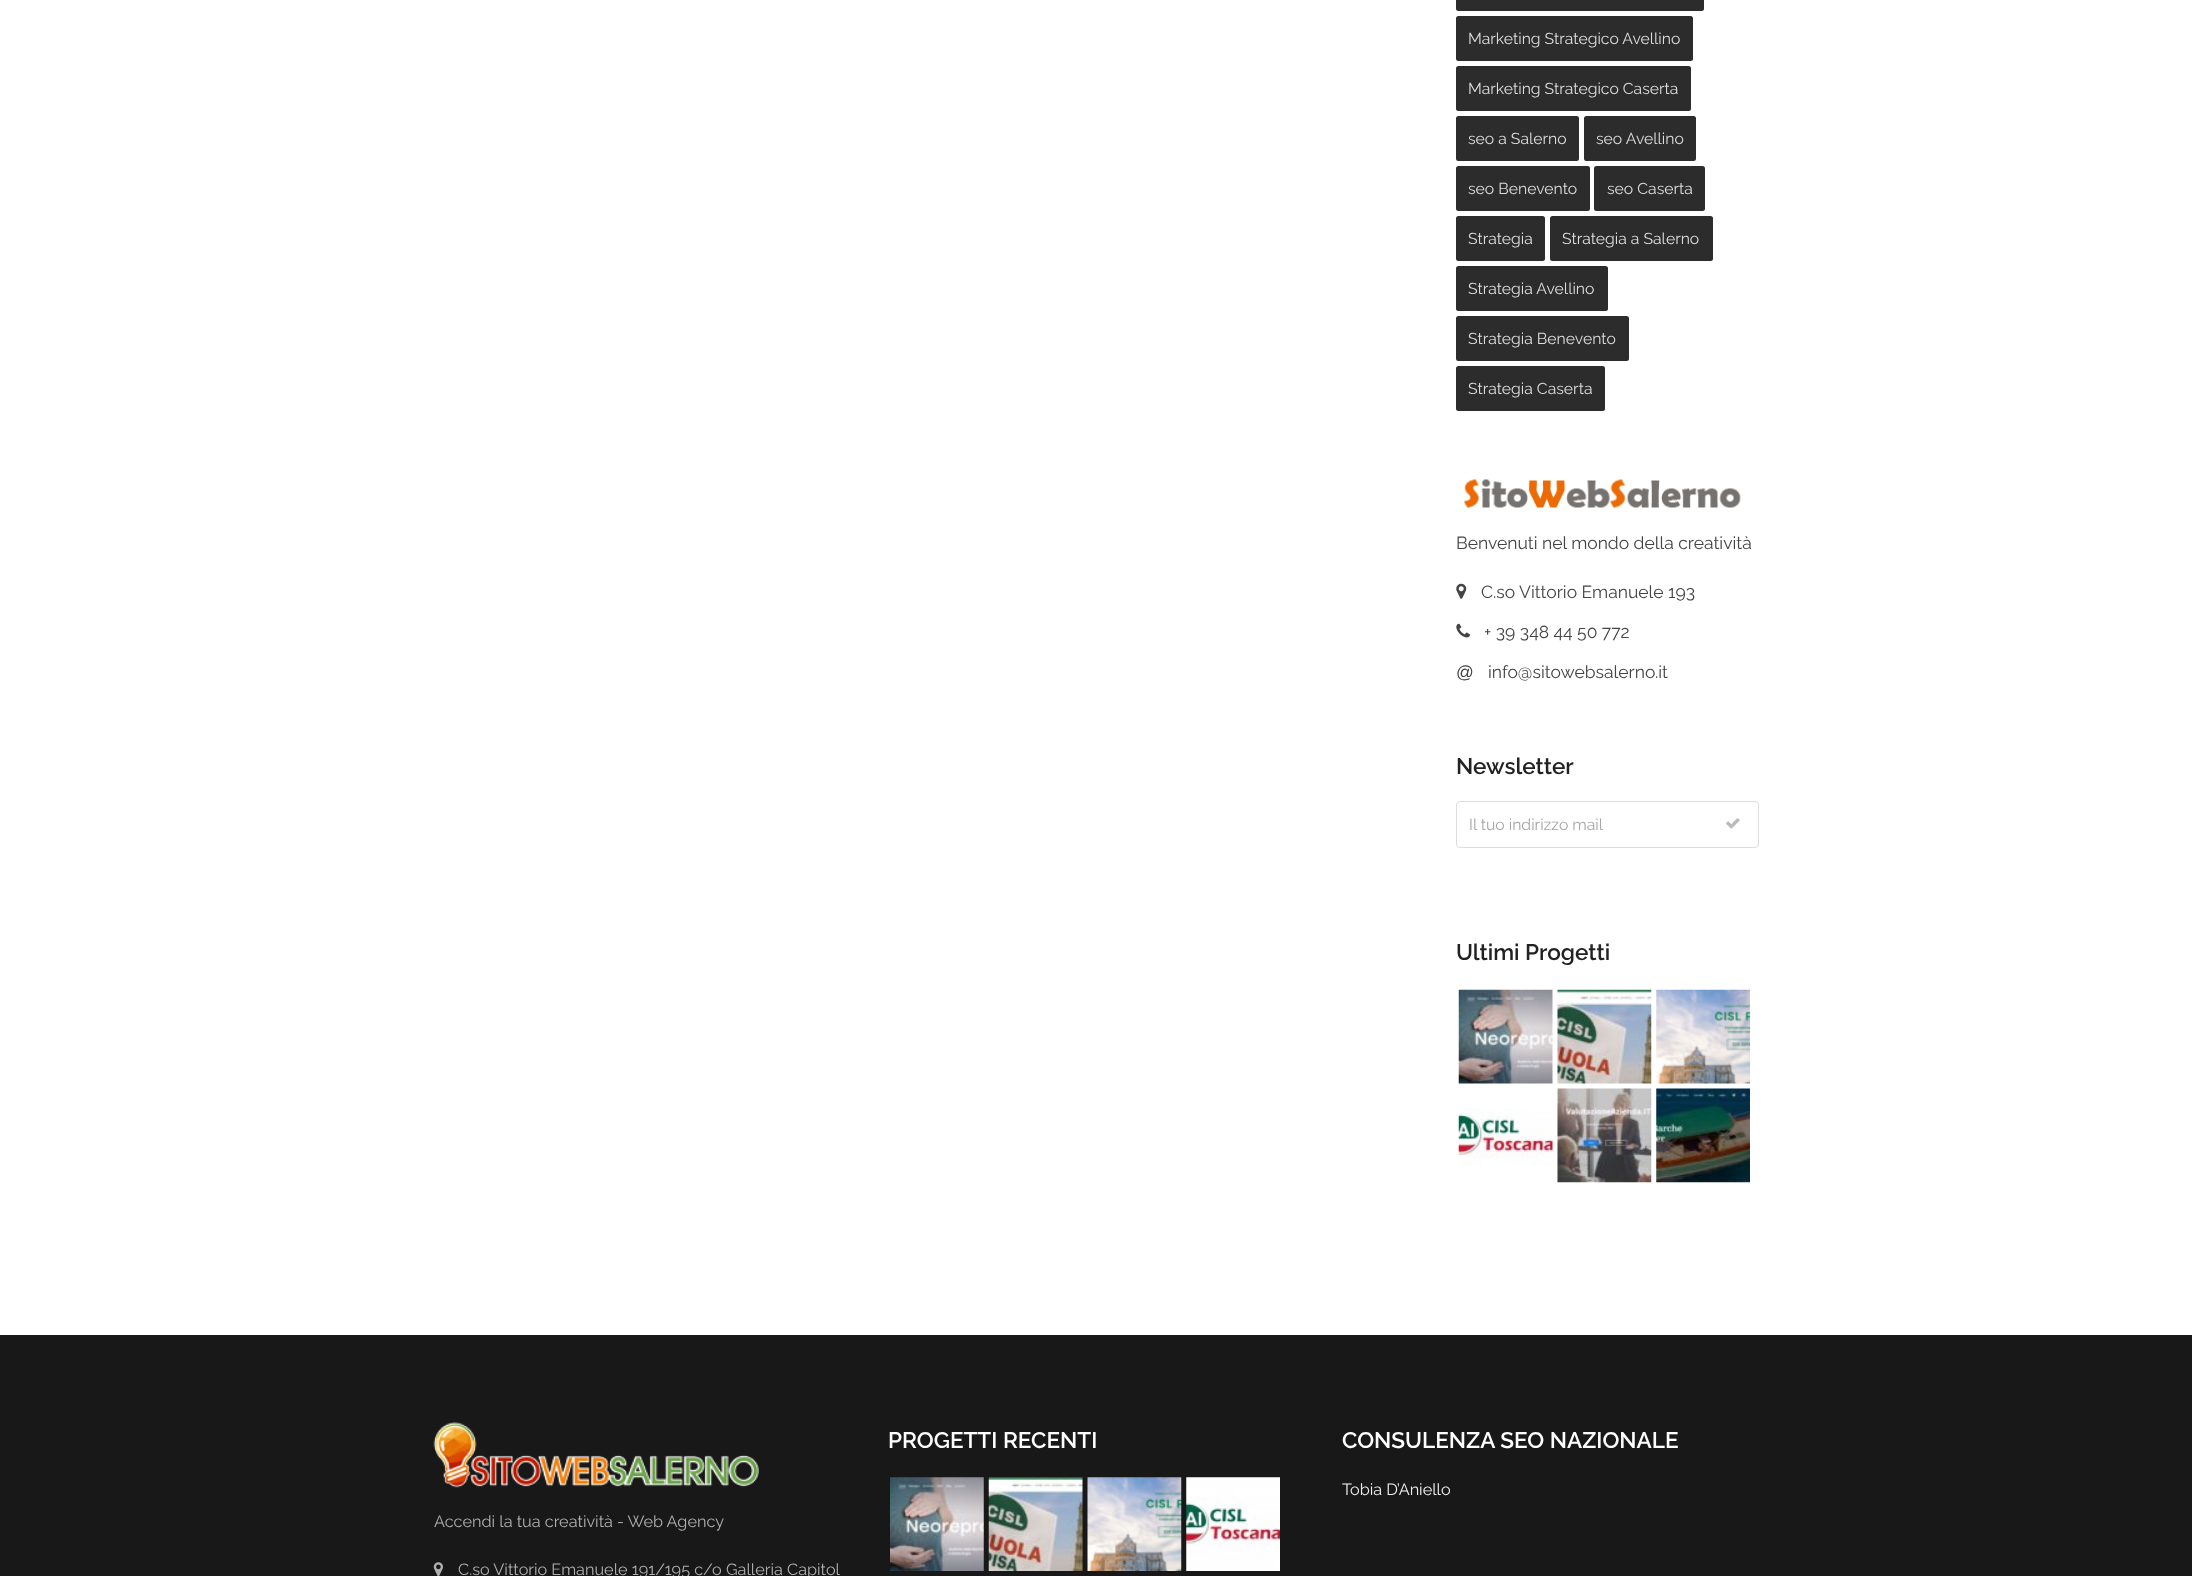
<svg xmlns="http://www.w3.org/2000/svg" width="2192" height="1576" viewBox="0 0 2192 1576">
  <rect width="100%" height="100%" fill="rgb(255,255,255)"/>
  <rect x="1456" y="-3" width="248" height="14" rx="2.5" fill="rgb(44,44,44)"/>
  <rect x="1456" y="16" width="237" height="45" rx="2.5" fill="rgb(44,44,44)"/>
  <text x="1468" y="44" font-family="Raleway" font-size="15.75" fill="rgb(221,221,221)">Marketing Strategico Avellino</text>
  <rect x="1456" y="66" width="235" height="45" rx="2.5" fill="rgb(44,44,44)"/>
  <text x="1468" y="94" font-family="Raleway" font-size="15.75" fill="rgb(221,221,221)">Marketing Strategico Caserta</text>
  <rect x="1456" y="116" width="123" height="45" rx="2.5" fill="rgb(44,44,44)"/>
  <text x="1468" y="144" font-family="Raleway" font-size="15.75" fill="rgb(221,221,221)">seo a Salerno</text>
  <rect x="1584" y="116" width="112" height="45" rx="2.5" fill="rgb(44,44,44)"/>
  <text x="1596" y="144" font-family="Raleway" font-size="15.75" fill="rgb(221,221,221)">seo Avellino</text>
  <rect x="1456" y="166" width="134" height="45" rx="2.5" fill="rgb(44,44,44)"/>
  <text x="1468" y="194" font-family="Raleway" font-size="15.75" fill="rgb(221,221,221)">seo Benevento</text>
  <rect x="1594" y="166" width="111" height="45" rx="2.5" fill="rgb(44,44,44)"/>
  <text x="1607" y="194" font-family="Raleway" font-size="15.75" fill="rgb(221,221,221)">seo Caserta</text>
  <rect x="1456" y="216" width="89" height="45" rx="2.5" fill="rgb(44,44,44)"/>
  <text x="1468" y="244" font-family="Raleway" font-size="15.75" fill="rgb(221,221,221)">Strategia</text>
  <rect x="1550" y="216" width="163" height="45" rx="2.5" fill="rgb(44,44,44)"/>
  <text x="1562" y="244" font-family="Raleway" font-size="15.75" fill="rgb(221,221,221)">Strategia a Salerno</text>
  <rect x="1456" y="266" width="152" height="45" rx="2.5" fill="rgb(44,44,44)"/>
  <text x="1468" y="294" font-family="Raleway" font-size="15.75" fill="rgb(221,221,221)">Strategia Avellino</text>
  <rect x="1456" y="316" width="173" height="45" rx="2.5" fill="rgb(44,44,44)"/>
  <text x="1468" y="344" font-family="Raleway" font-size="15.75" fill="rgb(221,221,221)">Strategia Benevento</text>
  <rect x="1456" y="366" width="149" height="45" rx="2.5" fill="rgb(44,44,44)"/>
  <text x="1468" y="394" font-family="Raleway" font-size="15.75" fill="rgb(221,221,221)">Strategia Caserta</text>
  <image x="1464" y="479" width="277" height="29" href="pic1.png"/>
  <text x="1456" y="549" font-family="Raleway" font-size="17.5" fill="rgb(68,68,68)">Benvenuti nel mondo della creatività</text>
  <image x="1456" y="583" width="11" height="16" href="pic2.png"/>
  <text x="1481" y="598" font-family="Raleway" font-size="17.5" fill="rgb(68,68,68)">C.so Vittorio Emanuele 193</text>
  <image x="1456" y="623" width="14" height="15" href="pic3.png"/>
  <text x="1484" y="638" font-family="Raleway" font-size="17.5" fill="rgb(68,68,68)">+ 39 348 44 50 772</text>
  <text x="1456" y="678" font-family="Liberation Sans" font-size="17.5" fill="rgb(68,68,68)">@</text>
  <text x="1488" y="678" font-family="Raleway" font-size="17.5" fill="rgb(68,68,68)">info@sitowebsalerno.it</text>
  <text x="1456" y="774" font-family="Raleway" font-size="22.5" font-weight="600" fill="rgb(34,34,34)">Newsletter</text>
  <rect x="1456.5" y="801.5" width="302" height="46" rx="3.5" fill="none" stroke="rgb(221,221,221)"/>
  <text x="1469" y="830" font-family="Raleway" font-size="15.75" fill="rgb(167,167,167)">Il tuo indirizzo mail</text>
  <image x="1726" y="818" width="14" height="11" href="pic4.png"/>
  <text x="1456" y="960" font-family="Raleway" font-size="22.5" font-weight="600" fill="rgb(34,34,34)">Ultimi Progetti</text>
  <image x="1458" y="989" width="95" height="95" href="pic5.png"/>
  <image x="1557" y="989" width="95" height="95" href="pic6.png"/>
  <image x="1656" y="989" width="94" height="95" href="pic7.png"/>
  <image x="1458" y="1108" width="95" height="58" href="pic8.png"/>
  <image x="1557" y="1088" width="95" height="95" href="pic9.png"/>
  <image x="1656" y="1088" width="94" height="95" href="pic10.png"/>
  <rect x="0" y="1335" width="2192" height="241" fill="rgb(24,24,24)"/>
  <text x="888" y="1448" font-family="Raleway" font-size="22.5" font-weight="600" fill="rgb(255,255,255)">PROGETTI RECENTI</text>
  <image x="890" y="1477" width="94" height="94" href="pic11.png"/>
  <image x="988" y="1477" width="95" height="94" href="pic12.png"/>
  <image x="1087" y="1477" width="95" height="94" href="pic13.png"/>
  <image x="1186" y="1477" width="94" height="94" href="pic14.png"/>
  <text x="1342" y="1448" font-family="Raleway" font-size="22.5" font-weight="600" fill="rgb(255,255,255)">CONSULENZA SEO NAZIONALE</text>
  <text x="1342" y="1495" font-family="Raleway" font-size="16.25" fill="rgb(238,238,238)">Tobia D’Aniello</text>
  <image x="433" y="1422" width="326" height="66" href="pic15.png"/>
  <text x="434" y="1527" font-family="Raleway" font-size="16.25" fill="rgb(175,175,175)">Accendi la tua creatività - Web Agency</text>
  <image x="433" y="1562" width="10" height="14" href="pic16.png"/>
  <text x="458" y="1575" font-family="Raleway" font-size="16.25" fill="rgb(175,175,175)">C.so Vittorio Emanuele 191/195 c/o Galleria Capitol</text>
</svg>
